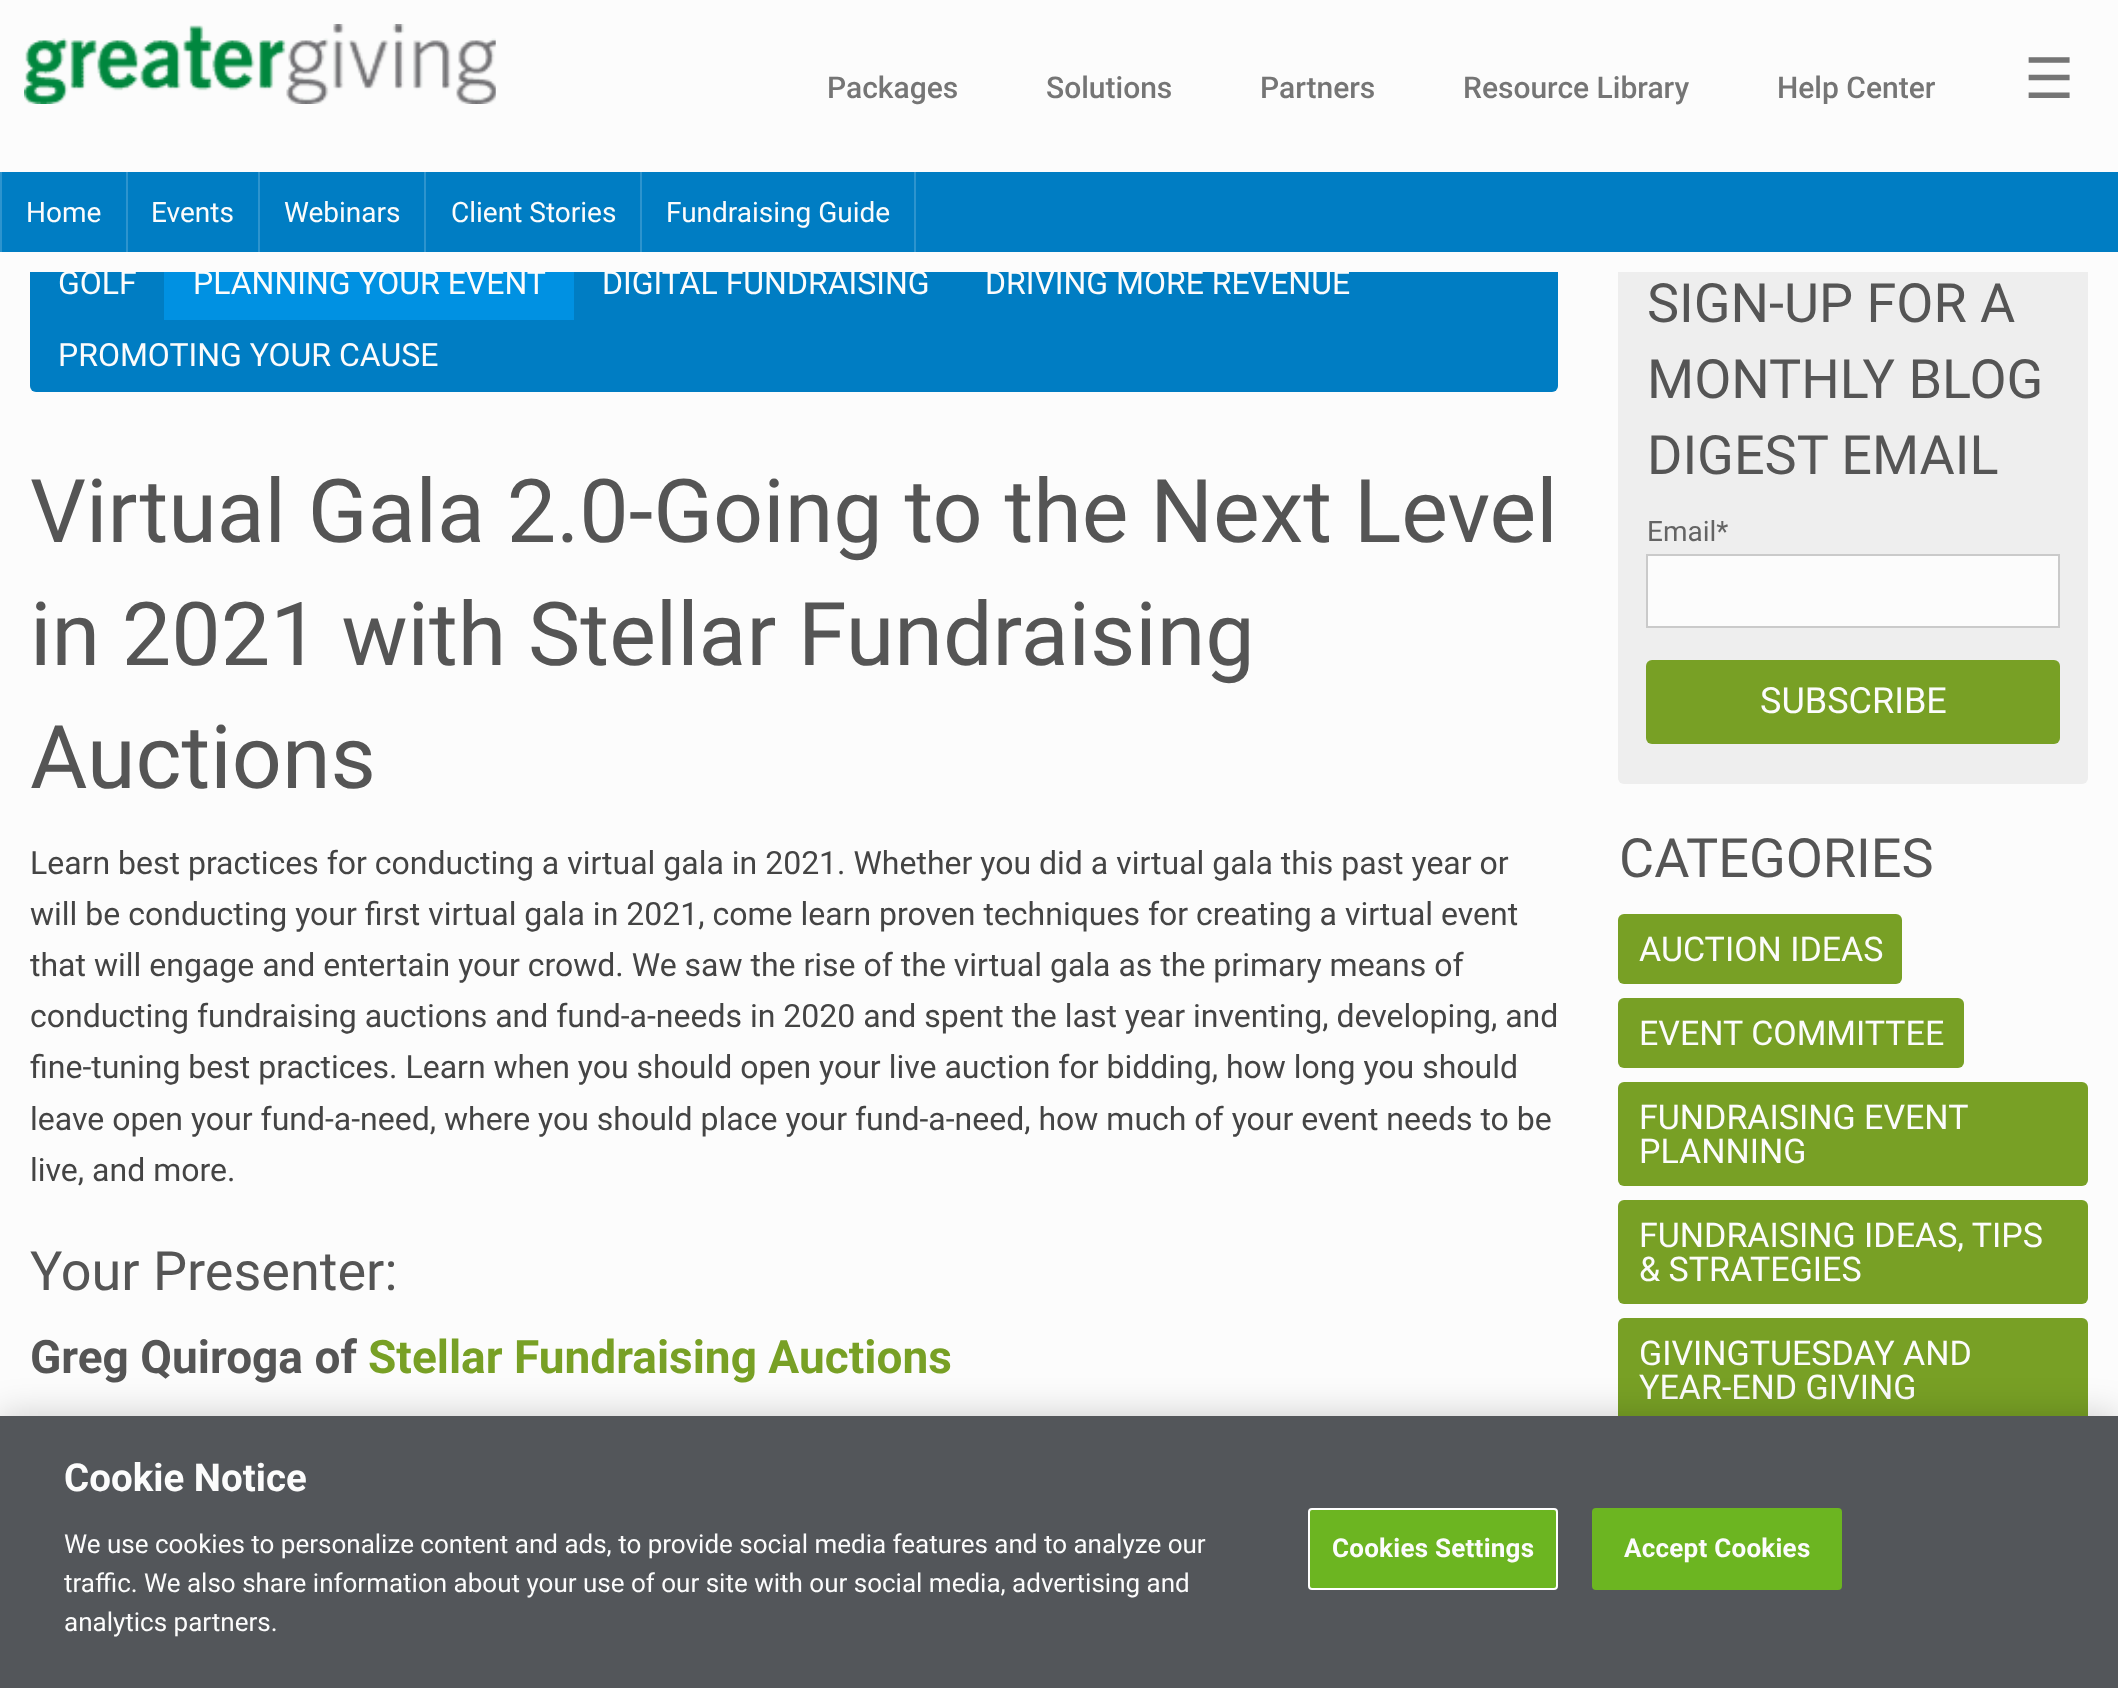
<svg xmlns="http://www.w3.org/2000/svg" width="2118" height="1688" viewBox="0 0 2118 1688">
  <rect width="100%" height="100%" fill="rgb(252,252,252)"/>
  <rect x="30" y="248" width="1528" height="144" rx="6" fill="rgb(0,125,195)"/>
  <rect x="1618" y="242" width="470" height="542" rx="6" fill="rgb(238,238,238)"/>
  <rect x="30" y="242" width="2058" height="30" fill="rgb(252,252,252)"/>
  <image x="24" y="24" width="472" height="80" href="pic1.png"/>
  <g font-family="Roboto" font-size="30" font-weight="500" fill="rgb(117,117,117)">
    <text x="827" y="98">Packages</text>
    <text x="1046" y="98">Solutions</text>
    <text x="1260" y="98">Partners</text>
    <text x="1463" y="98">Resource Library</text>
    <text x="1777" y="98">Help Center</text>
  </g>
  <text x="2024" y="98" font-family="DejaVu Sans" font-size="56" fill="rgb(117,117,117)">☰</text>
  <rect x="916" y="172" width="1202" height="80" fill="rgb(0,125,195)"/>
  <rect x="0" y="172" width="2" height="80" fill="rgb(45,148,206)"/>
  <rect x="2" y="172" width="124" height="80" fill="rgb(0,125,195)"/>
  <text x="26" y="222" font-family="Roboto" font-size="28" fill="rgb(252,252,252)">Home</text>
  <rect x="126" y="172" width="2" height="80" fill="rgb(45,148,206)"/>
  <rect x="128" y="172" width="130" height="80" fill="rgb(0,125,195)"/>
  <text x="151" y="222" font-family="Roboto" font-size="28" fill="rgb(252,252,252)">Events</text>
  <rect x="258" y="172" width="2" height="80" fill="rgb(45,148,206)"/>
  <rect x="260" y="172" width="164" height="80" fill="rgb(0,125,195)"/>
  <text x="284" y="222" font-family="Roboto" font-size="28" fill="rgb(252,252,252)">Webinars</text>
  <rect x="424" y="172" width="2" height="80" fill="rgb(45,148,206)"/>
  <rect x="426" y="172" width="214" height="80" fill="rgb(0,125,195)"/>
  <text x="451" y="222" font-family="Roboto" font-size="28" fill="rgb(252,252,252)">Client Stories</text>
  <rect x="640" y="172" width="276" height="80" fill="rgb(45,148,206)"/>
  <rect x="642" y="172" width="272" height="80" fill="rgb(0,125,195)"/>
  <text x="666" y="222" font-family="Roboto" font-size="28" fill="rgb(252,252,252)">Fundraising Guide</text>
  <text x="58" y="294" font-family="Roboto" font-size="32" fill="rgb(252,252,252)">GOLF</text>
  <rect x="164" y="272" width="410" height="48" fill="rgb(0,145,226)"/>
  <g font-family="Roboto" font-size="32" fill="rgb(252,252,252)">
    <text x="193" y="294">PLANNING YOUR EVENT</text>
    <text x="602" y="294">DIGITAL FUNDRAISING</text>
    <text x="985" y="294">DRIVING MORE REVENUE</text>
    <text x="58" y="366">PROMOTING YOUR CAUSE</text>
  </g>
  <g font-family="Roboto" font-size="88" fill="rgb(85,85,85)">
    <text>
      <tspan x="30" y="542">Virtual Gala 2.0-Going to the Next Level</tspan>
      <tspan x="30" y="665">in 2021 with Stellar Fundraising</tspan>
      <tspan x="30" y="788">Auctions</tspan>
    </text>
  </g>
  <g font-family="Roboto" font-size="32" fill="rgb(68,68,68)">
    <text>
      <tspan x="30" y="874">Learn best practices for conducting a virtual gala in 2021. Whether you did a virtual gala this past year or</tspan>
      <tspan x="30" y="925">will be conducting your first virtual gala in 2021, come learn proven techniques for creating a virtual event</tspan>
      <tspan x="30" y="976">that will engage and entertain your crowd. We saw the rise of the virtual gala as the primary means of</tspan>
      <tspan x="30" y="1027">conducting fundraising auctions and fund-a-needs in 2020 and spent the last year inventing, developing, and</tspan>
      <tspan x="30" y="1078">fine-tuning best practices. Learn when you should open your live auction for bidding, how long you should</tspan>
      <tspan x="30" y="1130">leave open your fund-a-need, where you should place your fund-a-need, how much of your event needs to be</tspan>
      <tspan x="30" y="1181">live, and more.</tspan>
    </text>
  </g>
  <text x="30" y="1290" font-family="Roboto" font-size="54" fill="rgb(85,85,85)">Your Presenter:</text>
  <text x="30" y="1373" font-family="Roboto" font-size="46" font-weight="bold" fill="rgb(85,85,85)">Greg Quiroga of</text>
  <text x="368" y="1373" font-family="Roboto" font-size="46" font-weight="bold" fill="rgb(120,160,37)">Stellar Fundraising Auctions</text>
  <g font-family="Roboto" font-size="54" fill="rgb(85,85,85)">
    <text>
      <tspan x="1647" y="322">SIGN-UP FOR A</tspan>
      <tspan x="1647" y="398">MONTHLY BLOG</tspan>
      <tspan x="1647" y="474">DIGEST EMAIL</tspan>
    </text>
  </g>
  <text x="1647" y="541" font-family="Roboto" font-size="28" fill="rgb(100,100,100)">Email*</text>
  <rect x="1647" y="555" width="412" height="72" fill="rgb(252,252,252)" stroke="rgb(202,202,202)" stroke-width="2"/>
  <rect x="1646" y="660" width="414" height="84" rx="6" fill="rgb(120,160,37)"/>
  <text x="1760" y="713" font-family="Roboto" font-size="36" fill="rgb(252,252,252)">SUBSCRIBE</text>
  <text x="1619" y="877" font-family="Roboto" font-size="54" fill="rgb(85,85,85)">CATEGORIES</text>
  <rect x="1618" y="914" width="284" height="70" rx="6" fill="rgb(120,160,37)"/>
  <text x="1639" y="961" font-family="Roboto" font-size="34" fill="rgb(252,252,252)">AUCTION IDEAS</text>
  <rect x="1618" y="998" width="346" height="70" rx="6" fill="rgb(120,160,37)"/>
  <text x="1639" y="1045" font-family="Roboto" font-size="34" fill="rgb(252,252,252)">EVENT COMMITTEE</text>
  <rect x="1618" y="1082" width="470" height="104" rx="6" fill="rgb(120,160,37)"/>
  <g font-family="Roboto" font-size="34" fill="rgb(252,252,252)">
    <text>
      <tspan x="1639" y="1129">FUNDRAISING EVENT</tspan>
      <tspan x="1639" y="1163">PLANNING</tspan>
    </text>
  </g>
  <rect x="1618" y="1200" width="470" height="104" rx="6" fill="rgb(120,160,37)"/>
  <g font-family="Roboto" font-size="34" fill="rgb(252,252,252)">
    <text>
      <tspan x="1639" y="1247">FUNDRAISING IDEAS, TIPS</tspan>
      <tspan x="1639" y="1281">&amp; STRATEGIES</tspan>
    </text>
  </g>
  <rect x="1618" y="1318" width="470" height="104" rx="6" fill="rgb(120,160,37)"/>
  <g font-family="Roboto" font-size="34" fill="rgb(252,252,252)">
    <text>
      <tspan x="1639" y="1365">GIVINGTUESDAY AND</tspan>
      <tspan x="1639" y="1399">YEAR-END GIVING</tspan>
    </text>
  </g>
  <rect x="0" y="1416" width="2118" height="272" fill="rgba(0,0,0,0.2)" filter="blur(18px)"/>
  <rect x="0" y="1416" width="2118" height="272" fill="rgb(83,86,90)"/>
  <text x="64" y="1491" font-family="Roboto" font-size="38.5" font-weight="bold" fill="rgb(252,252,252)">Cookie Notice</text>
  <g font-family="Roboto" font-size="26" fill="rgb(252,252,252)">
    <text>
      <tspan x="64" y="1553">We use cookies to personalize content and ads, to provide social media features and to analyze our</tspan>
      <tspan x="64" y="1592">traffic. We also share information about your use of our site with our social media, advertising and</tspan>
      <tspan x="64" y="1631">analytics partners.</tspan>
    </text>
  </g>
  <rect x="1309" y="1509" width="248" height="80" rx="3" fill="rgb(108,181,33)" stroke="rgb(255,255,255)" stroke-width="2"/>
  <text x="1332" y="1557" font-family="Roboto" font-size="26" font-weight="bold" letter-spacing="0.25" fill="rgb(252,252,252)">Cookies Settings</text>
  <rect x="1593" y="1509" width="248" height="80" rx="3" fill="rgb(108,181,33)" stroke="rgb(108,181,33)" stroke-width="2"/>
  <text x="1624" y="1557" font-family="Roboto" font-size="26" font-weight="bold" letter-spacing="0.25" fill="rgb(252,252,252)">Accept Cookies</text>
</svg>
